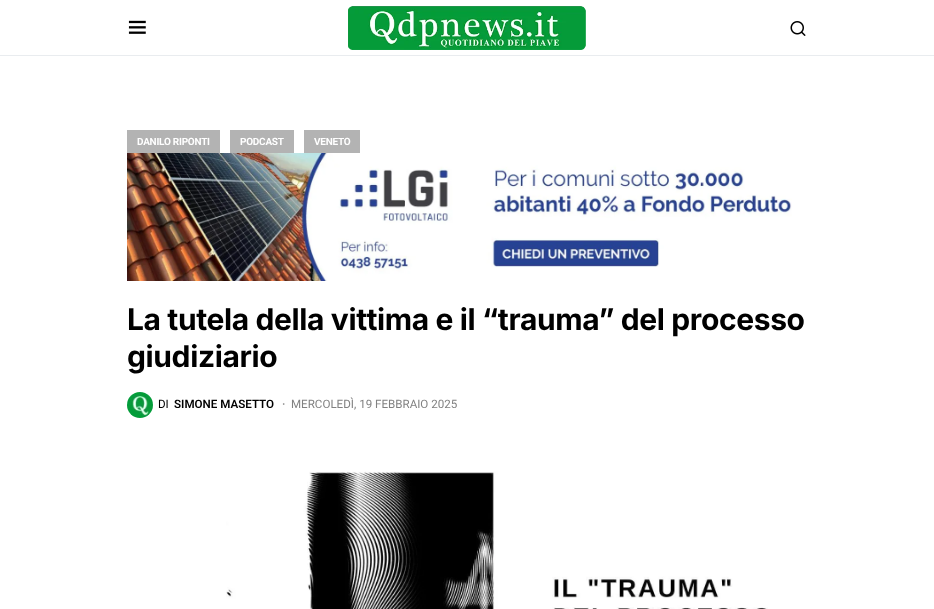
<svg xmlns="http://www.w3.org/2000/svg" width="934" height="609" viewBox="0 0 934 609">
  <rect width="100%" height="100%" fill="rgb(255,255,255)"/>
  <rect x="0" y="55" width="934" height="1" fill="rgb(233,236,239)"/>
  <image x="128" y="20" width="18" height="14" href="pic1.png"/>
  <image x="348" y="6" width="238" height="44" href="pic2.png"/>
  <image x="790" y="21" width="16" height="15" href="pic3.png"/>
  <rect x="127" y="130" width="93" height="23" fill="rgb(179,179,179)"/>
  <text x="137" y="145" font-family="Roboto" font-size="10" font-weight="bold" letter-spacing="-0.25" fill="rgb(255,255,255)">DANILO RIPONTI</text>
  <rect x="230" y="130" width="64" height="23" fill="rgb(179,179,179)"/>
  <text x="240" y="145" font-family="Roboto" font-size="10" font-weight="bold" letter-spacing="-0.25" fill="rgb(255,255,255)">PODCAST</text>
  <rect x="304" y="130" width="56" height="23" fill="rgb(179,179,179)"/>
  <text x="314" y="145" font-family="Roboto" font-size="10" font-weight="bold" letter-spacing="-0.25" fill="rgb(255,255,255)">VENETO</text>
  <image x="127" y="153" width="665" height="128" href="pic4.png"/>
  <g font-family="Inter" font-size="30" font-weight="bold" letter-spacing="-0.38" fill="rgb(0,0,0)">
    <text>
      <tspan x="127" y="330">La tutela della vittima e il “trauma” del processo</tspan>
      <tspan x="127" y="367">giudiziario</tspan>
    </text>
  </g>
  <image x="127" y="392" width="26" height="26" href="pic5.png"/>
  <text x="158" y="408" font-family="Roboto" font-size="11.6" fill="rgb(0,0,0)">DI</text>
  <text x="174" y="408" font-family="Roboto" font-size="11.6" font-weight="600" fill="rgb(0,0,0)">SIMONE MASETTO</text>
  <text x="282" y="408" font-family="Roboto" font-size="11.6" font-weight="600" fill="rgb(129,129,129)">·</text>
  <text x="291" y="408" font-family="Roboto" font-size="11.6" fill="rgb(129,129,129)">MERCOLEDÌ, 19 FEBBRAIO 2025</text>
  <image x="226" y="471" width="542" height="138" href="pic6.png"/>
</svg>
